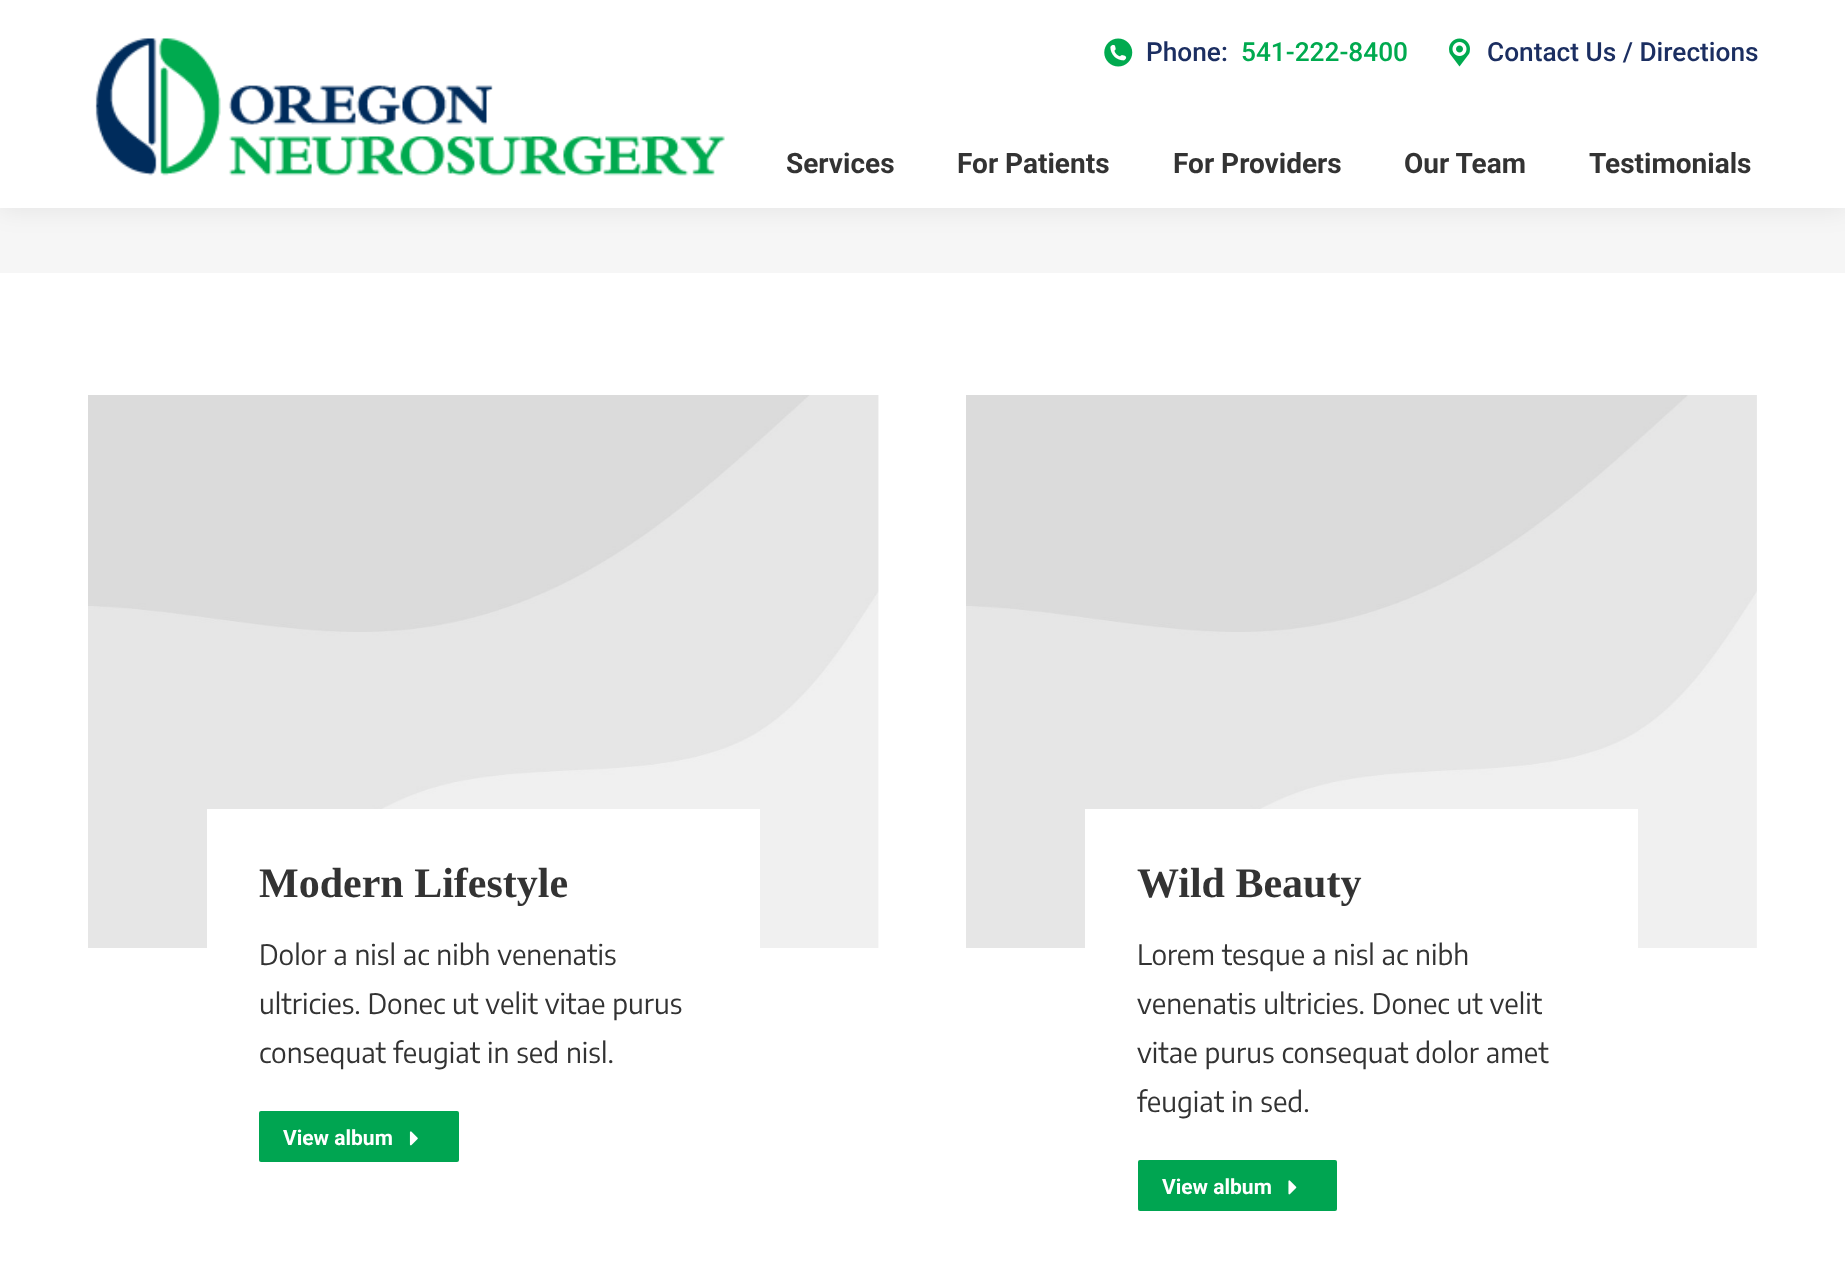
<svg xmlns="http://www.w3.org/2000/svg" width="1845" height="1278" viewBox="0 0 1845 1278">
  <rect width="100%" height="100%" fill="rgb(255,255,255)"/>
  <rect x="0" y="208" width="1845" height="65" fill="rgb(246,246,246)"/>
  <rect x="-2" y="-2" width="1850" height="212" fill="rgba(0,0,0,0.07)" filter="blur(13px)"/>
  <rect x="0" y="0" width="1845" height="208" fill="rgb(255,255,255)"/>
  <image x="1104" y="38" width="29" height="29" href="pic1.png"/>
  <text x="1146" y="61" font-family="Roboto" font-size="26.25" font-weight="500" fill="rgb(27,46,97)">Phone:</text>
  <text x="1241" y="61" font-family="Roboto" font-size="26.25" font-weight="500" fill="rgb(0,170,79)">541-222-8400</text>
  <image x="1449" y="38" width="21" height="29" href="pic2.png"/>
  <text x="1487" y="61" font-family="Roboto" font-size="26.25" font-weight="500" fill="rgb(27,46,97)">Contact Us / Directions</text>
  <image x="95" y="38" width="630" height="138" href="pic3.png"/>
  <g font-family="Roboto" font-size="28" font-weight="bold" fill="rgb(51,51,51)">
    <text x="786" y="173">Services</text>
    <text x="957" y="173">For Patients</text>
    <text x="1173" y="173">For Providers</text>
    <text x="1404" y="173">Our Team</text>
    <text x="1589" y="173">Testimonials</text>
  </g>
  <image x="88" y="395" width="791" height="553" href="pic4.png"/>
  <rect x="207" y="809" width="553" height="139" fill="rgb(255,255,255)"/>
  <text x="259" y="897" font-family="Liberation Serif" font-size="42" font-weight="bold" fill="rgb(51,51,51)">Modern Lifestyle</text>
  <g font-family="Encode Sans Condensed" font-size="28" fill="rgb(51,51,51)">
    <text>
      <tspan x="259" y="965">Dolor a nisl ac nibh venenatis</tspan>
      <tspan x="259" y="1014">ultricies. Donec ut velit vitae purus</tspan>
      <tspan x="259" y="1063">consequat feugiat in sed nisl.</tspan>
    </text>
  </g>
  <rect x="259" y="1111" width="200" height="51" rx="2" fill="rgb(0,165,81)"/>
  <text x="283" y="1145" font-family="Roboto" font-size="21" font-weight="bold" fill="rgb(255,255,255)">View album</text>
  <image x="409" y="1131" width="9" height="15" href="pic5.png"/>
  <image x="966" y="395" width="791" height="553" href="pic6.png"/>
  <rect x="1085" y="809" width="553" height="139" fill="rgb(255,255,255)"/>
  <text x="1137" y="897" font-family="Liberation Serif" font-size="42" font-weight="bold" fill="rgb(51,51,51)">Wild Beauty</text>
  <g font-family="Encode Sans Condensed" font-size="28" fill="rgb(51,51,51)">
    <text>
      <tspan x="1137" y="965">Lorem tesque a nisl ac nibh</tspan>
      <tspan x="1137" y="1014">venenatis ultricies. Donec ut velit</tspan>
      <tspan x="1137" y="1063">vitae purus consequat dolor amet</tspan>
      <tspan x="1137" y="1112">feugiat in sed.</tspan>
    </text>
  </g>
  <rect x="1138" y="1160" width="199" height="51" rx="2" fill="rgb(0,165,81)"/>
  <text x="1162" y="1194" font-family="Roboto" font-size="21" font-weight="bold" fill="rgb(255,255,255)">View album</text>
  <image x="1288" y="1180" width="9" height="15" href="pic7.png"/>
</svg>
